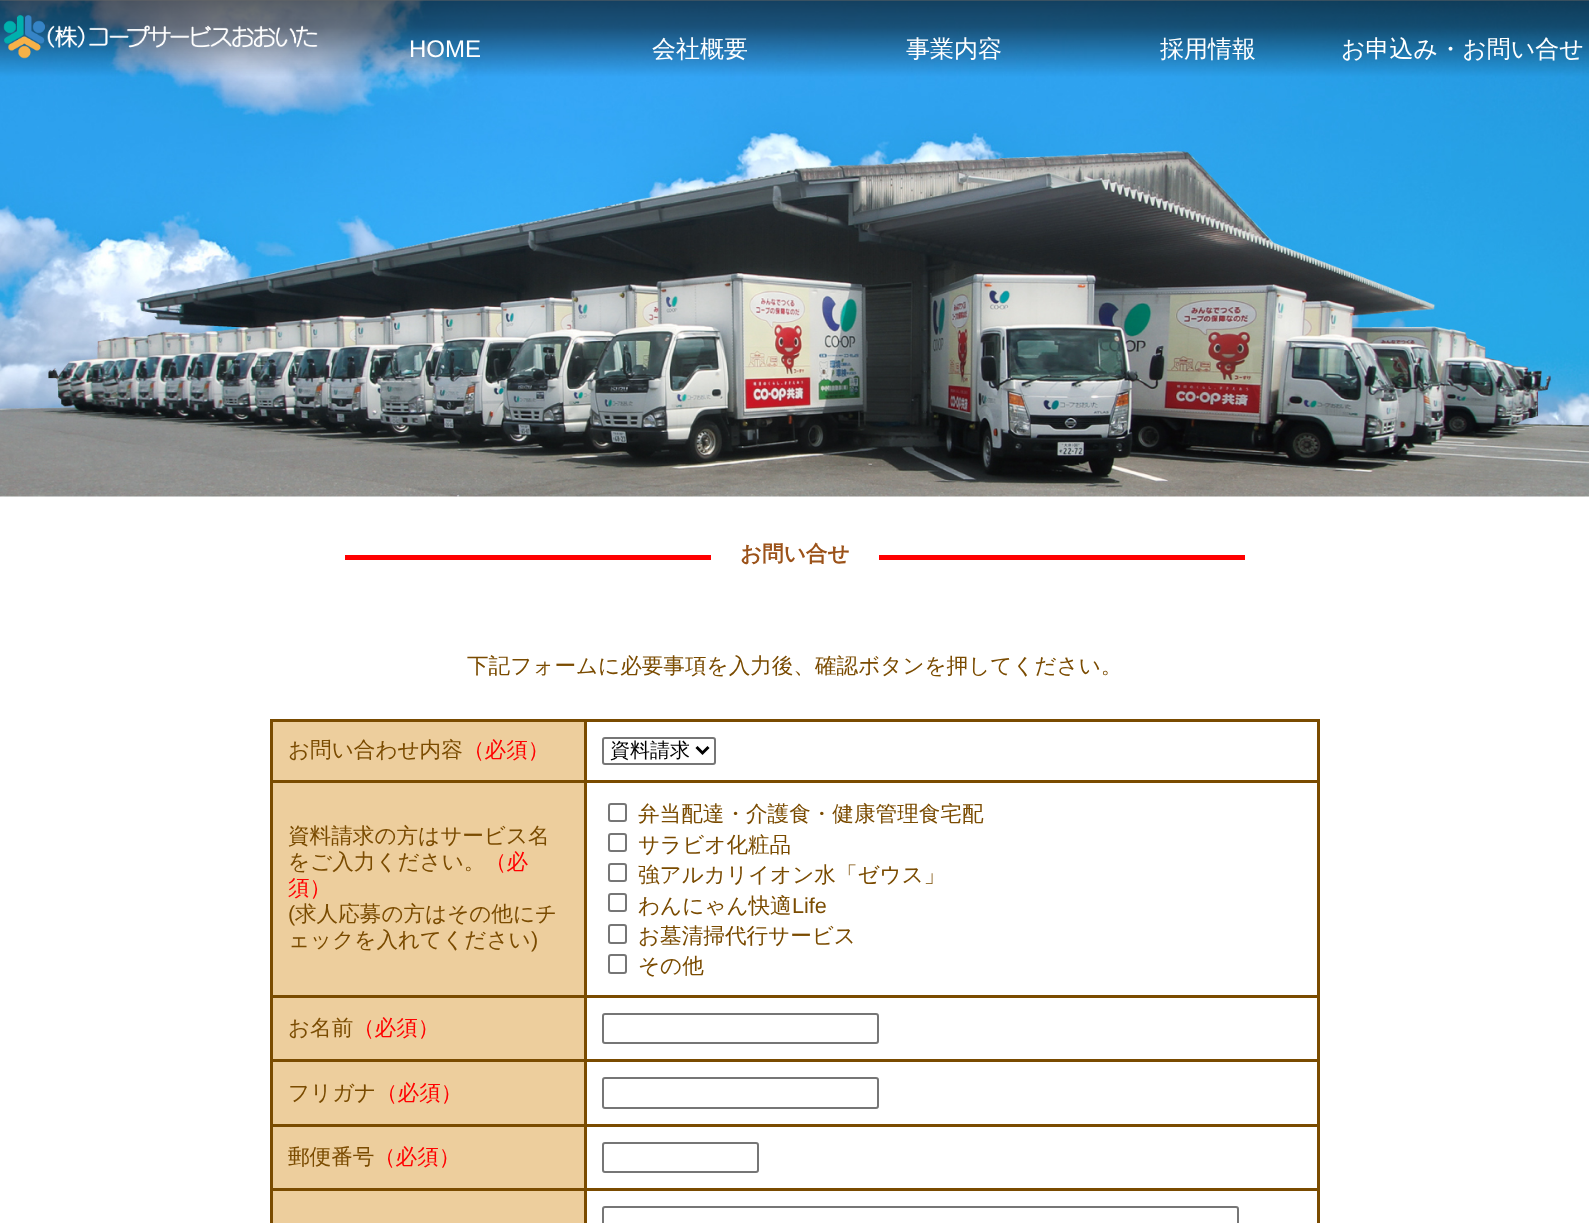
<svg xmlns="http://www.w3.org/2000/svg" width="1589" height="1223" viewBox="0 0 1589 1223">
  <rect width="100%" height="100%" fill="rgb(255,255,255)"/>
  <image x="0" y="0" width="1589" height="497" href="pic1.png"/>
  <image x="3" y="15" width="315" height="44" href="pic2.png"/>
  <text x="409" y="57" font-family="Liberation Sans" font-size="24" fill="rgb(255,255,255)">HOME</text>
  <g font-family="WenQuanYi Zen Hei" font-size="24" font-weight="500" fill="rgb(255,255,255)">
    <text x="652" y="57">会社概要</text>
    <text x="906" y="57">事業内容</text>
    <text x="1160" y="57">採用情報</text>
    <text x="1341" y="57">お申込み・お問い合せ</text>
  </g>
  <rect x="345" y="555" width="366" height="5" fill="rgb(255,0,0)"/>
  <text x="740" y="561" font-family="WenQuanYi Zen Hei" font-size="21.6" font-weight="bold" fill="rgb(155,82,25)">お問い合せ</text>
  <rect x="879" y="555" width="366" height="5" fill="rgb(255,0,0)"/>
  <text x="467" y="673" font-family="WenQuanYi Zen Hei" font-size="21.6" font-weight="500" fill="rgb(122,75,0)">下記フォームに必要事項を入力後、確認ボタンを押してください。</text>
  <rect x="273" y="722" width="311" height="58" fill="rgb(237,206,157)"/>
  <rect x="584" y="719" width="736" height="3" fill="rgb(122,75,0)"/>
  <rect x="584" y="780" width="736" height="3" fill="rgb(122,75,0)"/>
  <rect x="584" y="995" width="736" height="3" fill="rgb(122,75,0)"/>
  <rect x="584" y="1059" width="736" height="3" fill="rgb(122,75,0)"/>
  <rect x="584" y="1124" width="736" height="3" fill="rgb(122,75,0)"/>
  <rect x="584" y="1188" width="736" height="3" fill="rgb(122,75,0)"/>
  <rect x="584" y="1188" width="3" height="35" fill="rgb(122,75,0)"/>
  <rect x="270" y="1188" width="317" height="3" fill="rgb(122,75,0)"/>
  <rect x="584" y="1124" width="3" height="67" fill="rgb(122,75,0)"/>
  <rect x="270" y="1124" width="317" height="3" fill="rgb(122,75,0)"/>
  <rect x="584" y="1059" width="3" height="68" fill="rgb(122,75,0)"/>
  <rect x="270" y="1059" width="317" height="3" fill="rgb(122,75,0)"/>
  <rect x="584" y="995" width="3" height="67" fill="rgb(122,75,0)"/>
  <rect x="270" y="995" width="317" height="3" fill="rgb(122,75,0)"/>
  <rect x="584" y="780" width="3" height="218" fill="rgb(122,75,0)"/>
  <rect x="270" y="780" width="317" height="3" fill="rgb(122,75,0)"/>
  <rect x="584" y="719" width="3" height="64" fill="rgb(122,75,0)"/>
  <rect x="270" y="719" width="317" height="3" fill="rgb(122,75,0)"/>
  <rect x="270" y="1188" width="3" height="35" fill="rgb(122,75,0)"/>
  <rect x="270" y="1124" width="3" height="67" fill="rgb(122,75,0)"/>
  <rect x="270" y="1059" width="3" height="68" fill="rgb(122,75,0)"/>
  <rect x="270" y="995" width="3" height="67" fill="rgb(122,75,0)"/>
  <rect x="270" y="780" width="3" height="218" fill="rgb(122,75,0)"/>
  <rect x="270" y="719" width="3" height="64" fill="rgb(122,75,0)"/>
  <text x="288" y="757" font-family="WenQuanYi Zen Hei" font-size="21.6" font-weight="500" fill="rgb(122,75,0)">お問い合わせ内容</text>
  <text x="463" y="757" font-family="WenQuanYi Zen Hei" font-size="21.6" font-weight="500" fill="rgb(255,0,0)">（必須）</text>
  <rect x="1317" y="1188" width="3" height="35" fill="rgb(122,75,0)"/>
  <rect x="1317" y="1124" width="3" height="67" fill="rgb(122,75,0)"/>
  <rect x="1317" y="1059" width="3" height="68" fill="rgb(122,75,0)"/>
  <rect x="1317" y="995" width="3" height="67" fill="rgb(122,75,0)"/>
  <rect x="1317" y="780" width="3" height="218" fill="rgb(122,75,0)"/>
  <rect x="1317" y="719" width="3" height="64" fill="rgb(122,75,0)"/>
  <rect x="603" y="738" width="112" height="26" rx="2" fill="none" stroke="rgb(118,118,118)" stroke-width="2"/>
  <path d="M696.5 747L702.5 753L708.5 747" fill="none" stroke="rgb(0,0,0)" stroke-width="3"/>
  <text x="610" y="757" font-family="WenQuanYi Zen Hei" font-size="20" font-weight="500" fill="rgb(0,0,0)">資料請求</text>
  <rect x="273" y="783" width="311" height="212" fill="rgb(237,206,157)"/>
  <g font-family="WenQuanYi Zen Hei" font-size="21.6" font-weight="500" fill="rgb(122,75,0)">
    <text>
      <tspan x="288" y="843">資料請求の方はサービス名</tspan>
      <tspan x="288" y="869">をご入力ください。</tspan>
    </text>
  </g>
  <g font-family="WenQuanYi Zen Hei" font-size="21.6" font-weight="500" fill="rgb(255,0,0)">
    <text x="485" y="869">（必</text>
    <text x="288" y="895">須）</text>
  </g>
  <text x="288" y="921" font-family="Liberation Sans" font-size="21.6" fill="rgb(122,75,0)">(</text>
  <g font-family="WenQuanYi Zen Hei" font-size="21.6" font-weight="500" fill="rgb(122,75,0)">
    <text x="295" y="921">求人応募の方はその他にチ</text>
    <text x="288" y="947">ェックを入れてください</text>
  </g>
  <text x="531" y="947" font-family="Liberation Sans" font-size="21.6" fill="rgb(122,75,0)">)</text>
  <rect x="609" y="804" width="17" height="17" rx="2" fill="none" stroke="rgb(118,118,118)" stroke-width="2"/>
  <text x="638" y="821" font-family="WenQuanYi Zen Hei" font-size="21.6" font-weight="500" fill="rgb(122,75,0)">弁当配達・介護食・健康管理食宅配</text>
  <rect x="609" y="834" width="17" height="17" rx="2" fill="none" stroke="rgb(118,118,118)" stroke-width="2"/>
  <text x="638" y="852" font-family="WenQuanYi Zen Hei" font-size="21.6" font-weight="500" fill="rgb(122,75,0)">サラビオ化粧品</text>
  <rect x="609" y="864" width="17" height="17" rx="2" fill="none" stroke="rgb(118,118,118)" stroke-width="2"/>
  <text x="638" y="882" font-family="WenQuanYi Zen Hei" font-size="21.6" font-weight="500" fill="rgb(122,75,0)">強アルカリイオン水「ゼウス」</text>
  <rect x="609" y="894" width="17" height="17" rx="2" fill="none" stroke="rgb(118,118,118)" stroke-width="2"/>
  <text x="638" y="913" font-family="WenQuanYi Zen Hei" font-size="21.6" font-weight="500" fill="rgb(122,75,0)">わんにゃん快適</text>
  <text x="792" y="913" font-family="Liberation Sans" font-size="21.6" fill="rgb(122,75,0)">Life</text>
  <rect x="609" y="925" width="17" height="18" rx="2" fill="none" stroke="rgb(118,118,118)" stroke-width="2"/>
  <text x="638" y="943" font-family="WenQuanYi Zen Hei" font-size="21.6" font-weight="500" fill="rgb(122,75,0)">お墓清掃代行サービス</text>
  <rect x="609" y="955" width="17" height="18" rx="2" fill="none" stroke="rgb(118,118,118)" stroke-width="2"/>
  <text x="638" y="973" font-family="WenQuanYi Zen Hei" font-size="21.6" font-weight="500" fill="rgb(122,75,0)">その他</text>
  <rect x="273" y="998" width="311" height="61" fill="rgb(237,206,157)"/>
  <text x="288" y="1035" font-family="WenQuanYi Zen Hei" font-size="21.6" font-weight="500" fill="rgb(122,75,0)">お名前</text>
  <text x="353" y="1035" font-family="WenQuanYi Zen Hei" font-size="21.6" font-weight="500" fill="rgb(255,0,0)">（必須）</text>
  <rect x="603" y="1014" width="275" height="29" rx="2" fill="none" stroke="rgb(118,118,118)" stroke-width="2"/>
  <rect x="273" y="1062" width="311" height="62" fill="rgb(237,206,157)"/>
  <text x="288" y="1100" font-family="WenQuanYi Zen Hei" font-size="21.6" font-weight="500" fill="rgb(122,75,0)">フリガナ</text>
  <text x="376" y="1100" font-family="WenQuanYi Zen Hei" font-size="21.6" font-weight="500" fill="rgb(255,0,0)">（必須）</text>
  <rect x="603" y="1078" width="275" height="30" rx="2" fill="none" stroke="rgb(118,118,118)" stroke-width="2"/>
  <rect x="273" y="1127" width="311" height="61" fill="rgb(237,206,157)"/>
  <text x="288" y="1164" font-family="WenQuanYi Zen Hei" font-size="21.6" font-weight="500" fill="rgb(122,75,0)">郵便番号</text>
  <text x="374" y="1164" font-family="WenQuanYi Zen Hei" font-size="21.6" font-weight="500" fill="rgb(255,0,0)">（必須）</text>
  <rect x="603" y="1143" width="155" height="29" rx="2" fill="none" stroke="rgb(118,118,118)" stroke-width="2"/>
  <rect x="273" y="1191" width="311" height="32" fill="rgb(237,206,157)"/>
  <rect x="603" y="1207" width="635" height="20" rx="2" fill="none" stroke="rgb(118,118,118)" stroke-width="2"/>
</svg>
